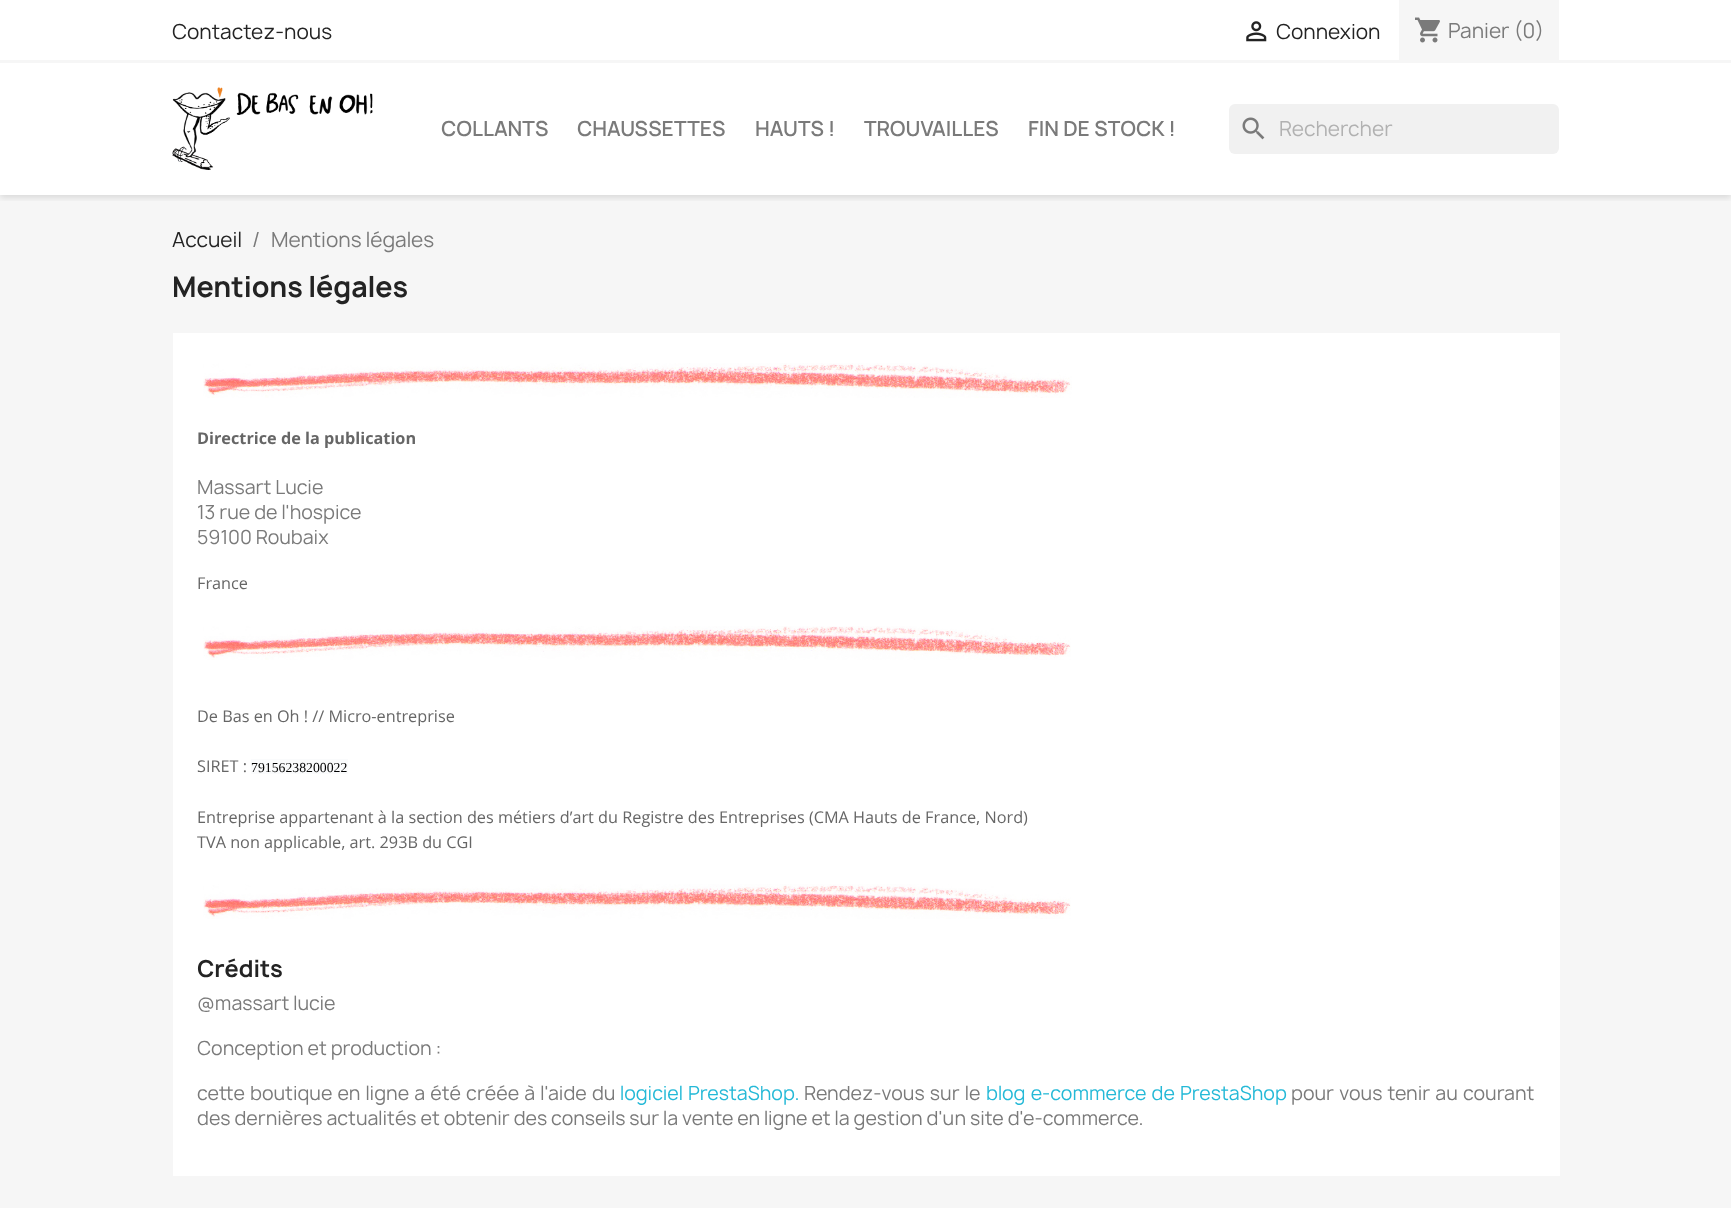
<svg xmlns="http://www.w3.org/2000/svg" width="1731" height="1208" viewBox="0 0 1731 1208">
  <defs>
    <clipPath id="clip1"><rect x="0" y="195" width="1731" height="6"/></clipPath>
  </defs>
  <rect width="100%" height="100%" fill="rgb(255,255,255)"/>
  <rect x="0" y="195" width="1731" height="1013" fill="rgb(246,246,246)"/>
  <g clip-path="url(#clip1)">
    <rect x="0" y="3" width="1731" height="195" fill="rgba(0,0,0,0.11)" filter="blur(3px)"/>
  </g>
  <rect x="0" y="60" width="1731" height="3" fill="rgb(246,246,246)"/>
  <text x="172" y="39" font-family="Manrope" font-size="20" fill="rgb(35,35,35)">Contactez-nous</text>
  <image x="1246" y="21" width="21" height="21" href="pic1.png"/>
  <text x="1276" y="39" font-family="Manrope" font-size="20" fill="rgb(35,35,35)">Connexion</text>
  <rect x="1399" y="0" width="160" height="60" fill="rgb(246,246,246)"/>
  <image x="1415" y="17" width="25" height="26" href="pic2.png"/>
  <text x="1448" y="38" font-family="Manrope" font-size="20" fill="rgb(122,122,122)">Panier (0)</text>
  <image x="172" y="87" width="201" height="83" href="pic3.png"/>
  <g font-family="Manrope" font-size="20" font-weight="600" fill="rgb(122,122,122)">
    <text x="441" y="136">COLLANTS</text>
    <text x="577" y="136">CHAUSSETTES</text>
    <text x="755" y="136">HAUTS !</text>
    <text x="864" y="136">TROUVAILLES</text>
    <text x="1028" y="136">FIN DE STOCK !</text>
  </g>
  <rect x="1229" y="104" width="330" height="50" rx="6" fill="rgb(241,241,241)"/>
  <image x="1242" y="117" width="23" height="23" href="pic4.png"/>
  <text x="1279" y="136" font-family="Manrope" font-size="20" fill="rgb(177,177,177)">Rechercher</text>
  <text x="172" y="247" font-family="Manrope" font-size="20" fill="rgb(35,35,35)">Accueil</text>
  <g font-family="Manrope" font-size="20" fill="rgb(122,122,122)">
    <text x="252" y="247">/</text>
    <text x="271" y="247">Mentions légales</text>
  </g>
  <text x="172" y="297" font-family="Manrope" font-size="27.5" font-weight="bold" fill="rgb(35,35,35)">Mentions légales</text>
  <rect x="173" y="333" width="1387" height="843" fill="rgb(255,255,255)"/>
  <image x="203" y="363" width="869" height="35" href="pic5.png"/>
  <text x="197" y="444" font-family="Open Sans" font-size="16.25" font-weight="bold" fill="rgb(102,102,102)">Directrice de la publication</text>
  <g font-family="Manrope" font-size="18.75" fill="rgb(122,122,122)">
    <text>
      <tspan x="197" y="494">Massart Lucie</tspan>
      <tspan x="197" y="519">13 rue de l'hospice</tspan>
      <tspan x="197" y="544">59100 Roubaix</tspan>
    </text>
  </g>
  <text x="197" y="589" font-family="Open Sans" font-size="16.25" fill="rgb(102,102,102)">France</text>
  <image x="203" y="626" width="868" height="34" href="pic6.png"/>
  <g font-family="Open Sans" font-size="16.25" fill="rgb(102,102,102)">
    <text x="197" y="722">De Bas en Oh ! // Micro-entreprise</text>
    <text x="197" y="772">SIRET :</text>
  </g>
  <rect x="251" y="759" width="97" height="15" fill="rgb(250,251,252)"/>
  <text x="251" y="772" font-family="Liberation Serif" font-size="13.75" fill="rgb(0,0,0)">79156238200022</text>
  <g font-family="Open Sans" font-size="16.25" fill="rgb(102,102,102)">
    <text>
      <tspan x="197" y="823">Entreprise appartenant à la section des métiers d’art du Registre des Entreprises (CMA Hauts de France, Nord)</tspan>
      <tspan x="197" y="848">TVA non applicable, art. 293B du CGI</tspan>
    </text>
  </g>
  <image x="203" y="884" width="868" height="35" href="pic7.png"/>
  <text x="197" y="977" font-family="Manrope" font-size="22.5" font-weight="bold" fill="rgb(35,35,35)">Crédits</text>
  <g font-family="Manrope" font-size="18.75" fill="rgb(122,122,122)">
    <text x="197" y="1010">@massart lucie</text>
    <text x="197" y="1055">Conception et production :</text>
    <text x="197" y="1100" word-spacing="1.25">cette boutique en ligne a été créée à l'aide du</text>
  </g>
  <text x="620" y="1100" word-spacing="1.25" font-family="Manrope" font-size="18.75" fill="rgb(36,185,215)">logiciel PrestaShop.</text>
  <text x="804" y="1100" word-spacing="1.25" font-family="Manrope" font-size="18.75" fill="rgb(122,122,122)">Rendez-vous sur le</text>
  <text x="986" y="1100" word-spacing="1.25" font-family="Manrope" font-size="18.75" fill="rgb(36,185,215)">blog e-commerce de PrestaShop</text>
  <g font-family="Manrope" font-size="18.75" fill="rgb(122,122,122)">
    <text x="1291" y="1100" word-spacing="1.25">pour vous tenir au courant</text>
    <text x="197" y="1125">des dernières actualités et obtenir des conseils sur la vente en ligne et la gestion d'un site d'e-commerce.</text>
  </g>
</svg>
